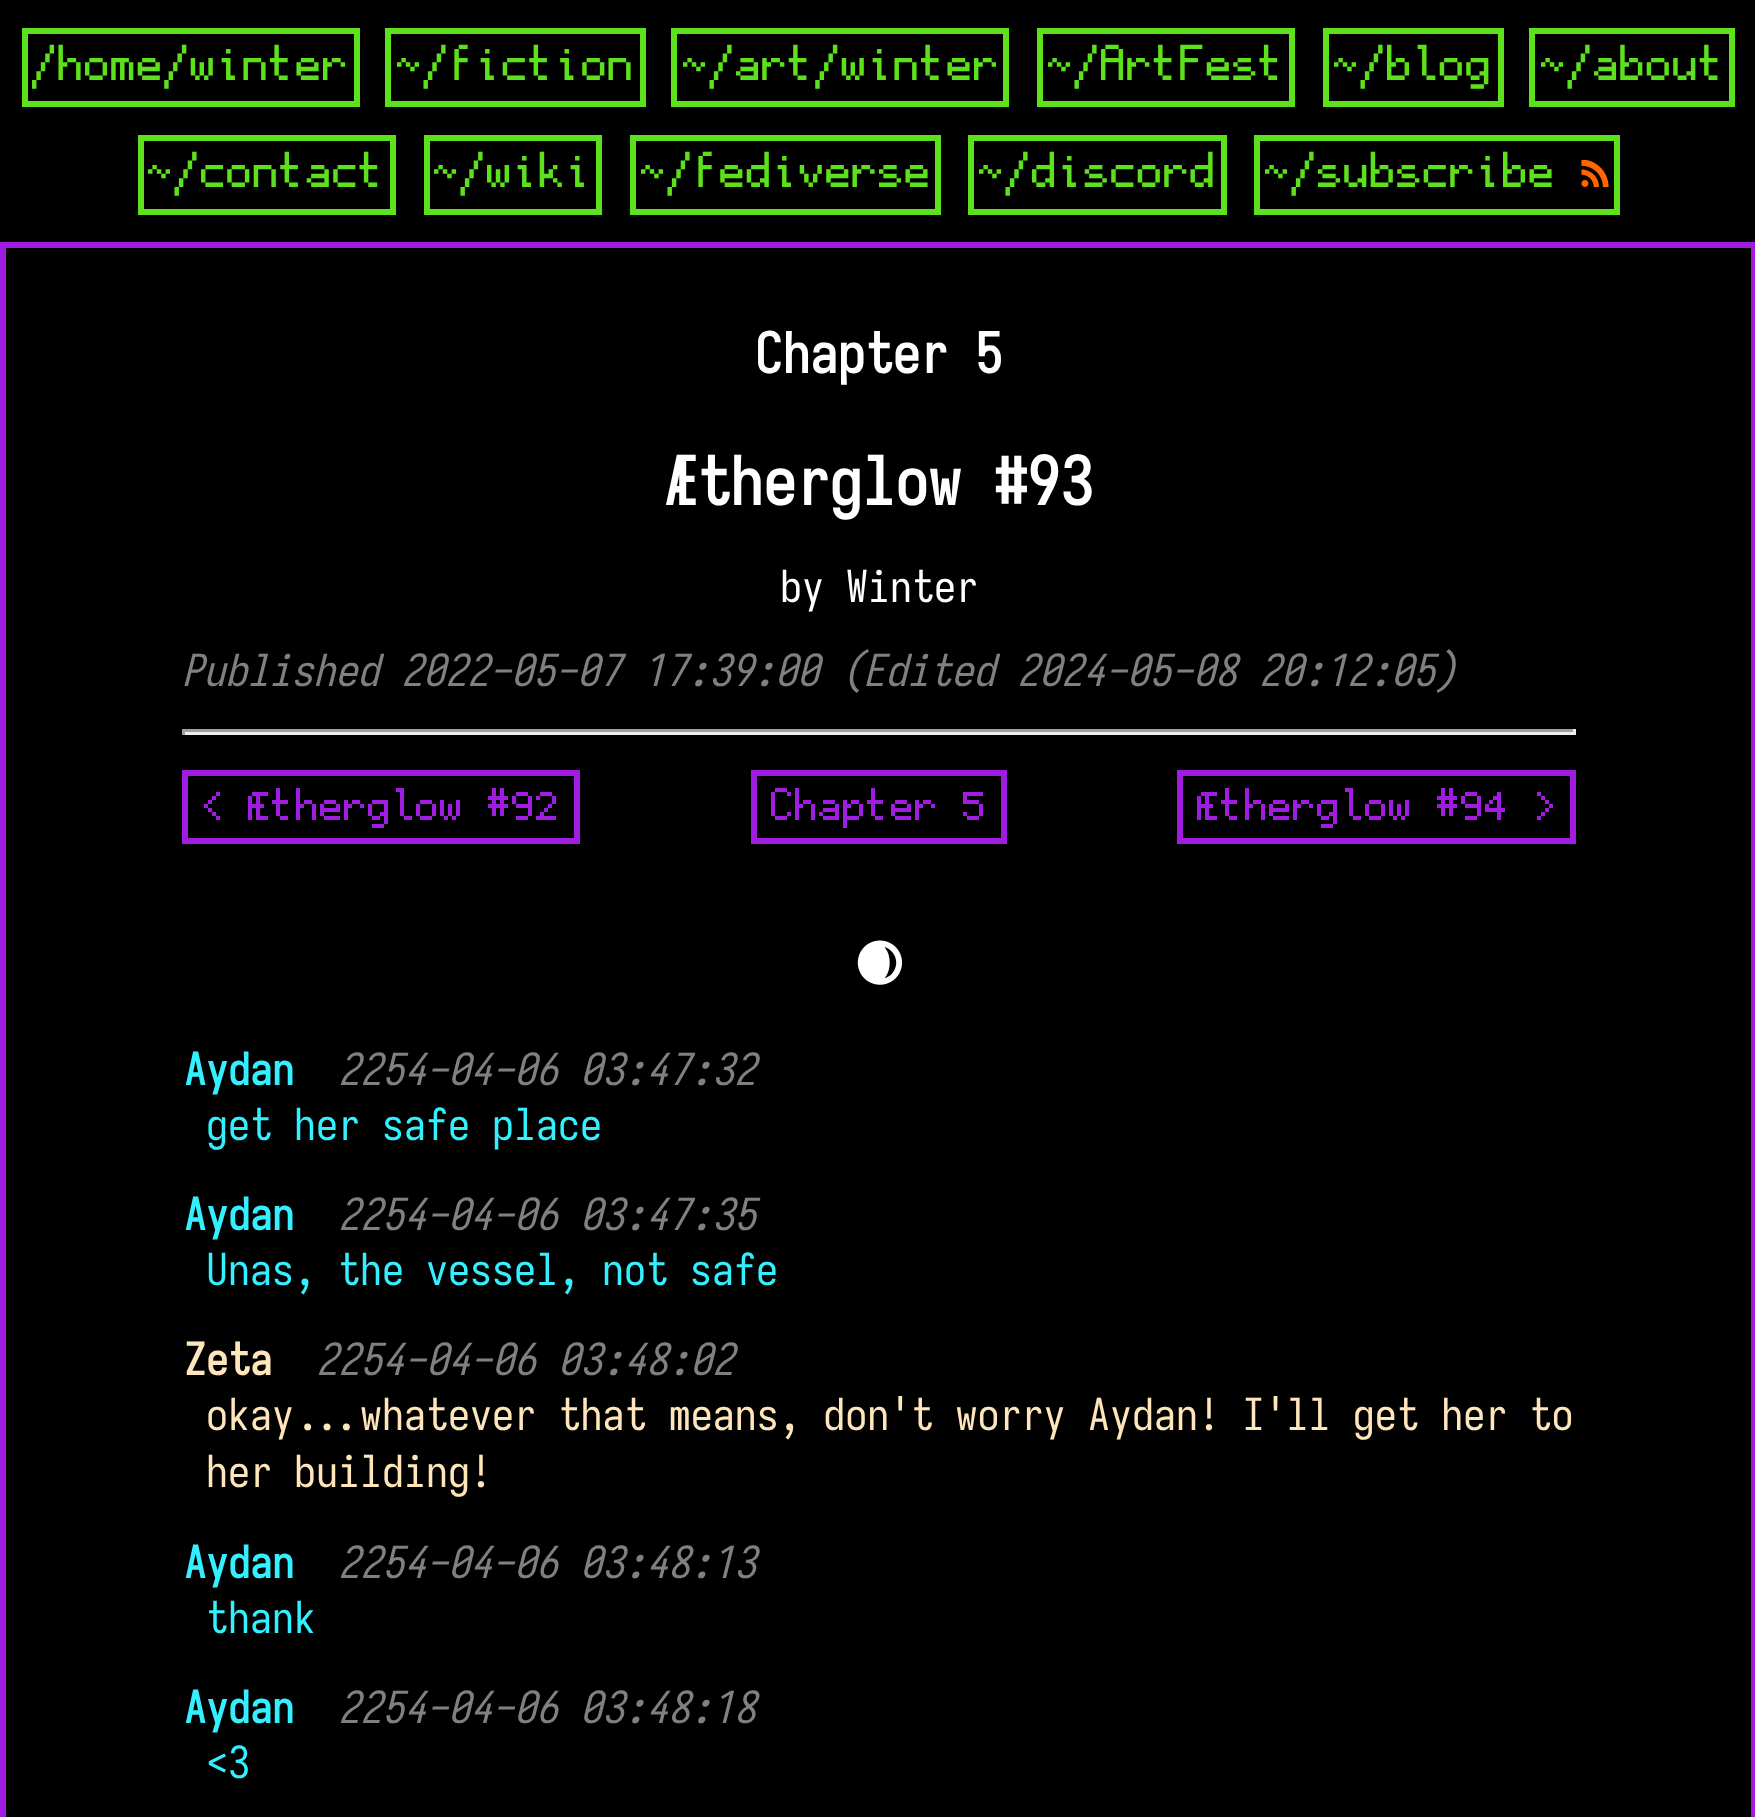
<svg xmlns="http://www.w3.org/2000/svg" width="1755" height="1817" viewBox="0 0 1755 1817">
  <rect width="100%" height="100%" fill="rgb(0,0,0)"/>
  <rect x="25" y="31" width="332" height="73" fill="none" stroke="rgb(92,225,28)" stroke-width="6"/>
  <text x="32" y="80" font-family="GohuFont" font-size="48.5" font-weight="500" fill="rgb(92,225,28)">/home/winter</text>
  <rect x="388" y="31" width="255" height="73" fill="none" stroke="rgb(92,225,28)" stroke-width="6"/>
  <text x="397" y="80" font-family="GohuFont" font-size="48.5" font-weight="500" fill="rgb(92,225,28)">~/fiction</text>
  <rect x="674" y="31" width="332" height="73" fill="none" stroke="rgb(92,225,28)" stroke-width="6"/>
  <text x="683" y="80" font-family="GohuFont" font-size="48.5" font-weight="500" fill="rgb(92,225,28)">~/art/winter</text>
  <rect x="1040" y="31" width="252" height="73" fill="none" stroke="rgb(92,225,28)" stroke-width="6"/>
  <text x="1048" y="80" font-family="GohuFont" font-size="48.5" font-weight="500" fill="rgb(92,225,28)">~/ArtFest</text>
  <rect x="1326" y="31" width="175" height="73" fill="none" stroke="rgb(92,225,28)" stroke-width="6"/>
  <text x="1334" y="80" font-family="GohuFont" font-size="48.5" font-weight="500" fill="rgb(92,225,28)">~/blog</text>
  <rect x="1532" y="31" width="200" height="73" fill="none" stroke="rgb(92,225,28)" stroke-width="6"/>
  <text x="1541" y="80" font-family="GohuFont" font-size="48.5" font-weight="500" fill="rgb(92,225,28)">~/about</text>
  <rect x="141" y="138" width="252" height="74" fill="none" stroke="rgb(92,225,28)" stroke-width="6"/>
  <text x="148" y="187" font-family="GohuFont" font-size="48.5" font-weight="500" fill="rgb(92,225,28)">~/contact</text>
  <rect x="427" y="138" width="172" height="74" fill="none" stroke="rgb(92,225,28)" stroke-width="6"/>
  <text x="434" y="187" font-family="GohuFont" font-size="48.5" font-weight="500" fill="rgb(92,225,28)">~/wiki</text>
  <rect x="633" y="138" width="305" height="74" fill="none" stroke="rgb(92,225,28)" stroke-width="6"/>
  <text x="641" y="187" font-family="GohuFont" font-size="48.5" font-weight="500" fill="rgb(92,225,28)">~/fediverse</text>
  <rect x="971" y="138" width="253" height="74" fill="none" stroke="rgb(92,225,28)" stroke-width="6"/>
  <text x="979" y="187" font-family="GohuFont" font-size="48.5" font-weight="500" fill="rgb(92,225,28)">~/discord</text>
  <rect x="1257" y="138" width="360" height="74" fill="none" stroke="rgb(92,225,28)" stroke-width="6"/>
  <text x="1265" y="187" font-family="GohuFont" font-size="48.5" font-weight="500" fill="rgb(92,225,28)">~/subscribe</text>
  <image x="1581" y="160" width="28" height="27" href="pic1.png"/>
  <rect x="3" y="245" width="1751" height="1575" fill="none" stroke="rgb(161,28,225)" stroke-width="6"/>
  <text x="755" y="373" font-family="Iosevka" font-size="55" font-weight="bold" fill="rgb(255,255,255)">Chapter 5</text>
  <text x="664" y="505" font-family="Iosevka" font-size="66" font-weight="bold" fill="rgb(255,255,255)">Ætherglow #93</text>
  <text x="780" y="602" font-family="Iosevka" font-size="44" fill="rgb(255,255,255)">by Winter</text>
  <text x="181" y="686" font-family="Iosevka" font-size="44" font-style="italic" fill="rgb(128,128,128)">Published 2022-05-07 17:39:00 (Edited 2024-05-08 20:12:05)</text>
  <rect x="182" y="729" width="1394" height="3" fill="rgb(159,159,159)"/>
  <rect x="1573" y="729" width="3" height="6" fill="rgb(238,238,238)"/>
  <rect x="182" y="732" width="1394" height="3" fill="rgb(238,238,238)"/>
  <rect x="182" y="729" width="3" height="6" fill="rgb(159,159,159)"/>
  <rect x="185" y="773" width="392" height="68" fill="none" stroke="rgb(161,28,225)" stroke-width="6"/>
  <text x="200" y="820" font-family="GohuFont" font-size="44" font-weight="500" fill="rgb(161,28,225)">&lt; Ætherglow #92</text>
  <rect x="754" y="773" width="250" height="68" fill="none" stroke="rgb(161,28,225)" stroke-width="6"/>
  <text x="771" y="820" font-family="GohuFont" font-size="44" font-weight="500" fill="rgb(161,28,225)">Chapter 5</text>
  <rect x="1180" y="773" width="393" height="68" fill="none" stroke="rgb(161,28,225)" stroke-width="6"/>
  <text x="1197" y="820" font-family="GohuFont" font-size="44" font-weight="500" fill="rgb(161,28,225)">Ætherglow #94 &gt;</text>
  <text x="846" y="986" font-family="Iosevka" font-size="66" font-weight="bold" fill="rgb(255,255,255)">🌒</text>
  <text x="184" y="1085" font-family="Iosevka" font-size="44" font-weight="bold" fill="rgb(52,239,254)">Aydan</text>
  <text x="338" y="1085" font-family="Iosevka" font-size="44" font-style="italic" fill="rgb(128,128,128)">2254-04-06 03:47:32</text>
  <text x="206" y="1140" font-family="Iosevka" font-size="44" fill="rgb(52,239,254)">get her safe place</text>
  <text x="184" y="1230" font-family="Iosevka" font-size="44" font-weight="bold" fill="rgb(52,239,254)">Aydan</text>
  <text x="338" y="1230" font-family="Iosevka" font-size="44" font-style="italic" fill="rgb(128,128,128)">2254-04-06 03:47:35</text>
  <text x="206" y="1285" font-family="Iosevka" font-size="44" fill="rgb(52,239,254)">Unas, the vessel, not safe</text>
  <text x="184" y="1375" font-family="Iosevka" font-size="44" font-weight="bold" fill="rgb(255,229,186)">Zeta</text>
  <text x="316" y="1375" font-family="Iosevka" font-size="44" font-style="italic" fill="rgb(128,128,128)">2254-04-06 03:48:02</text>
  <g font-family="Iosevka" font-size="44" fill="rgb(255,229,186)">
    <text>
      <tspan x="206" y="1430" word-spacing="0.4">okay...whatever that means, don't worry Aydan! I'll get her to</tspan>
      <tspan x="206" y="1487">her building!</tspan>
    </text>
  </g>
  <text x="184" y="1578" font-family="Iosevka" font-size="44" font-weight="bold" fill="rgb(52,239,254)">Aydan</text>
  <text x="338" y="1578" font-family="Iosevka" font-size="44" font-style="italic" fill="rgb(128,128,128)">2254-04-06 03:48:13</text>
  <text x="206" y="1633" font-family="Iosevka" font-size="44" fill="rgb(52,239,254)">thank</text>
  <text x="184" y="1723" font-family="Iosevka" font-size="44" font-weight="bold" fill="rgb(52,239,254)">Aydan</text>
  <text x="338" y="1723" font-family="Iosevka" font-size="44" font-style="italic" fill="rgb(128,128,128)">2254-04-06 03:48:18</text>
  <text x="206" y="1778" font-family="Iosevka" font-size="44" fill="rgb(52,239,254)">&lt;3</text>
</svg>
